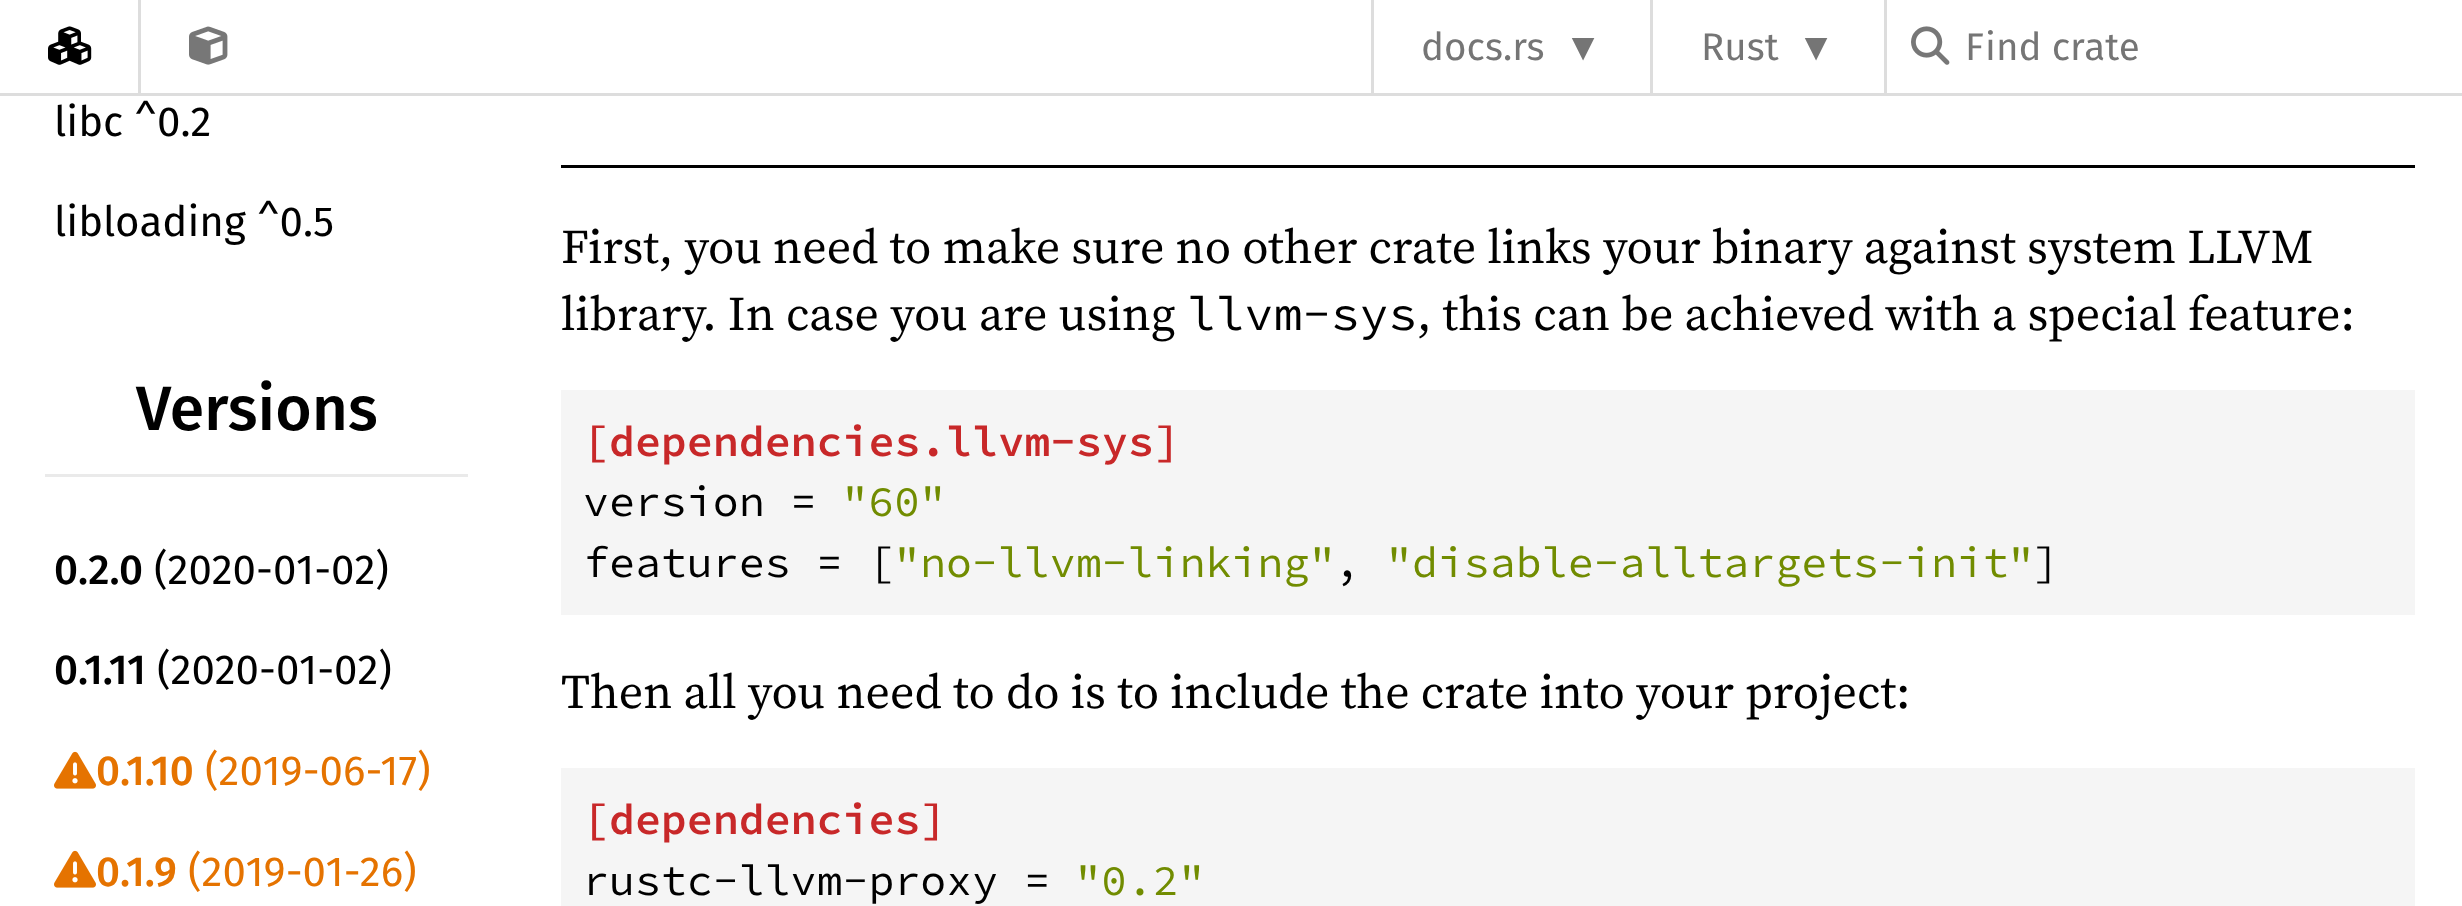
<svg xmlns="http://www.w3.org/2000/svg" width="2462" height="906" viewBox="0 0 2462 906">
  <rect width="100%" height="100%" fill="rgb(255,255,255)"/>
  <rect x="0" y="93" width="2462" height="3" fill="rgb(221,221,221)"/>
  <image x="48" y="26" width="44" height="39" href="pic1.png"/>
  <rect x="138" y="0" width="3" height="93" fill="rgb(221,221,221)"/>
  <image x="189" y="26" width="39" height="39" href="pic2.png"/>
  <rect x="1371" y="0" width="3" height="93" fill="rgb(221,221,221)"/>
  <text x="1421" y="60" font-family="Fira Sans" font-size="38.5" fill="rgb(117,117,117)">docs.rs</text>
  <text x="1564" y="60" font-family="Liberation Sans" font-size="38.5" fill="rgb(117,117,117)">▼</text>
  <rect x="1650" y="0" width="3" height="93" fill="rgb(221,221,221)"/>
  <text x="1701" y="60" font-family="Fira Sans" font-size="38.5" fill="rgb(117,117,117)">Rust</text>
  <text x="1797" y="60" font-family="Liberation Sans" font-size="38.5" fill="rgb(117,117,117)">▼</text>
  <rect x="1884" y="0" width="3" height="93" fill="rgb(221,221,221)"/>
  <image x="1911" y="26" width="39" height="39" href="pic3.png"/>
  <text x="1965" y="60" font-family="Fira Sans" font-size="38.5" fill="rgb(117,117,117)">Find crate</text>
  <g font-family="Fira Sans" font-size="42" fill="rgb(0,0,0)">
    <text x="54" y="136">libc ^0.2</text>
    <text x="54" y="236">libloading ^0.5</text>
  </g>
  <rect x="45" y="474" width="423" height="3" fill="rgb(234,234,234)"/>
  <text x="136" y="430" font-family="Fira Sans" font-size="62.5" font-weight="500" fill="rgb(0,0,0)">Versions</text>
  <text x="54" y="584" font-family="Fira Sans" font-size="42" font-weight="500" fill="rgb(0,0,0)">0.2.0</text>
  <text x="154" y="584" font-family="Fira Sans" font-size="42" fill="rgb(0,0,0)">(2020-01-02)</text>
  <text x="54" y="684" font-family="Fira Sans" font-size="42" font-weight="500" fill="rgb(0,0,0)">0.1.11</text>
  <text x="157" y="684" font-family="Fira Sans" font-size="42" fill="rgb(0,0,0)">(2020-01-02)</text>
  <image x="54" y="751" width="42" height="38" href="pic4.png"/>
  <text x="96" y="785" font-family="Fira Sans" font-size="42" font-weight="500" fill="rgb(229,115,0)">0.1.10</text>
  <text x="205" y="785" font-family="Fira Sans" font-size="42" fill="rgb(229,115,0)">(2019-06-17)</text>
  <image x="54" y="850" width="42" height="38" href="pic4.png"/>
  <text x="96" y="886" font-family="Fira Sans" font-size="42" font-weight="500" fill="rgb(229,115,0)">0.1.9</text>
  <text x="188" y="886" font-family="Fira Sans" font-size="42" fill="rgb(229,115,0)">(2019-01-26)</text>
  <rect x="561" y="165" width="1854" height="3" fill="rgb(0,0,0)"/>
  <g font-family="'Source Serif 4'" font-size="48" fill="rgb(0,0,0)">
    <text>
      <tspan x="561" y="263">First, you need to make sure no other crate links your binary against system LLVM</tspan>
      <tspan x="561" y="330">library. In case you are using</tspan>
    </text>
  </g>
  <text x="1187" y="330" font-family="Source Code Pro" font-size="48" fill="rgb(0,0,0)">llvm-sys</text>
  <text x="1417" y="330" font-family="'Source Serif 4'" font-size="48" fill="rgb(0,0,0)">, this can be achieved with a special feature:</text>
  <rect x="561" y="390" width="1854" height="225" fill="rgb(245,245,245)"/>
  <text x="583" y="456" font-family="Source Code Pro" font-size="43.25" font-weight="600" fill="rgb(200,40,41)">[dependencies.llvm-sys]</text>
  <text x="583" y="516" font-family="Source Code Pro" font-size="43.25" fill="rgb(0,0,0)">version =</text>
  <text x="842" y="516" font-family="Source Code Pro" font-size="43.25" fill="rgb(113,140,0)">"60"</text>
  <text x="583" y="577" font-family="Source Code Pro" font-size="43.25" fill="rgb(0,0,0)">features = [</text>
  <g font-family="Source Code Pro" font-size="43.25" fill="rgb(113,140,0)">
    <text x="894" y="577">"no-llvm-linking"</text>
    <text x="1386" y="577">"disable-alltargets-init</text>
    <text x="2008" y="577">"</text>
  </g>
  <g font-family="Source Code Pro" font-size="43.25" fill="rgb(0,0,0)">
    <text x="2033" y="577">]</text>
    <text x="1334" y="577">,</text>
  </g>
  <text x="561" y="708" font-family="'Source Serif 4'" font-size="48" fill="rgb(0,0,0)">Then all you need to do is to include the crate into your project:</text>
  <rect x="561" y="768" width="1854" height="138" fill="rgb(245,245,245)"/>
  <text x="583" y="834" font-family="Source Code Pro" font-size="43.25" font-weight="600" fill="rgb(200,40,41)">[dependencies]</text>
  <text x="583" y="895" font-family="Source Code Pro" font-size="43.25" fill="rgb(0,0,0)">rustc-llvm-proxy =</text>
  <text x="1075" y="895" font-family="Source Code Pro" font-size="43.25" fill="rgb(113,140,0)">"0.2"</text>
</svg>
